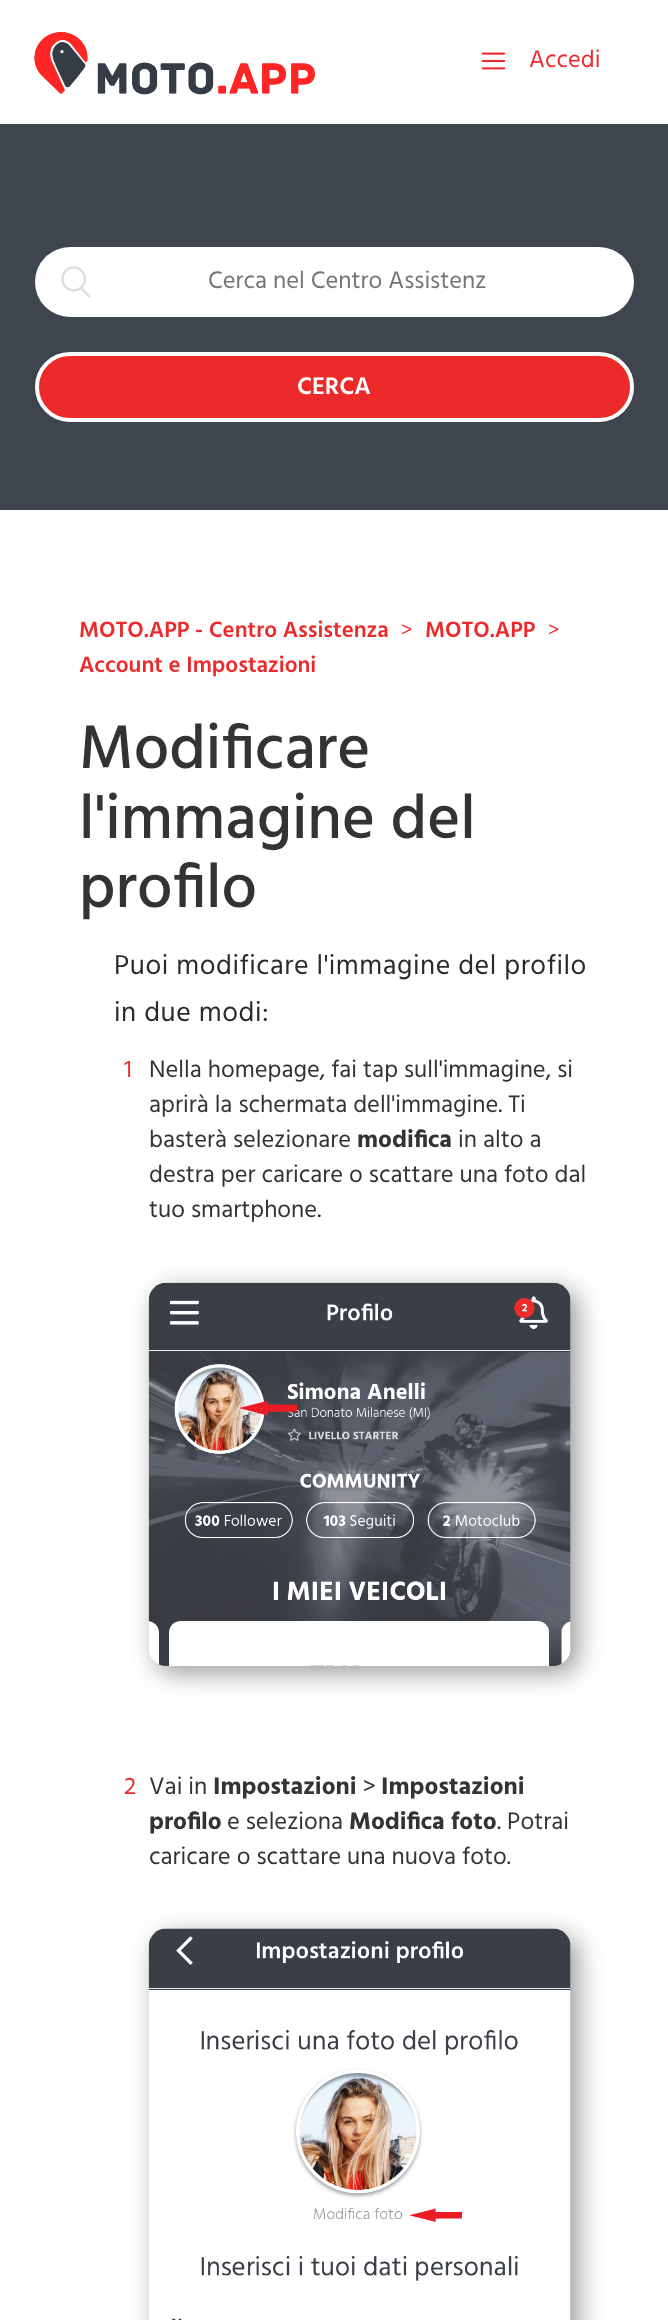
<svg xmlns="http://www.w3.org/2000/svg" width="668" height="2320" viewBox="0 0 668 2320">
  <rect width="100%" height="100%" fill="rgb(255,255,255)"/>
  <image x="34" y="32" width="281" height="63" href="pic1.png"/>
  <image x="481" y="52" width="25" height="18" href="pic2.png"/>
  <text x="529" y="67" font-family="Hind" font-size="24.5" fill="rgb(237,42,43)">Accedi</text>
  <rect x="0" y="124" width="668" height="386" fill="rgb(63,69,78)"/>
  <rect x="35" y="247" width="599" height="70" rx="35" fill="rgb(255,255,255)"/>
  <image x="61" y="266" width="30" height="32" href="pic3.png"/>
  <text x="208" y="288" font-family="Hind" font-size="24.5" fill="rgb(117,117,117)">Cerca nel Centro Assistenz</text>
  <rect x="37" y="354" width="595" height="66" rx="33" fill="rgb(237,42,42)" stroke="rgb(255,255,255)" stroke-width="4"/>
  <text x="297" y="394" font-family="Hind" font-size="24.5" font-weight="600" fill="rgb(255,255,255)">CERCA</text>
  <text x="79" y="637" font-family="Hind" font-size="22.75" font-weight="600" fill="rgb(237,42,43)">MOTO.APP - Centro Assistenza</text>
  <text x="401" y="637" font-family="Hind" font-size="22.75" font-weight="300" fill="rgb(237,42,43)">&gt;</text>
  <text x="425" y="637" font-family="Hind" font-size="22.75" font-weight="600" fill="rgb(237,42,43)">MOTO.APP</text>
  <text x="548" y="637" font-family="Hind" font-size="22.75" font-weight="300" fill="rgb(237,42,43)">&gt;</text>
  <text x="79" y="672" font-family="Hind" font-size="22.75" font-weight="600" fill="rgb(237,42,43)">Account e Impostazioni</text>
  <g font-family="Hind" font-size="63" font-weight="500" fill="rgb(51,51,51)">
    <text>
      <tspan x="79" y="768">Modificare</tspan>
      <tspan x="79" y="838">l'immagine del</tspan>
      <tspan x="79" y="907">profilo</tspan>
    </text>
  </g>
  <g font-family="Hind" font-size="28" letter-spacing="0.55" fill="rgb(43,43,43)">
    <text>
      <tspan x="114" y="974">Puoi modificare l'immagine del profilo</tspan>
      <tspan x="114" y="1021">in due modi:</tspan>
    </text>
  </g>
  <text x="124" y="1077" font-family="Hind" font-size="24.5" fill="rgb(237,42,43)">1</text>
  <g font-family="Hind" font-size="24.5" fill="rgb(51,51,51)">
    <text>
      <tspan x="149" y="1077">Nella homepage, fai tap sull'immagine, si</tspan>
      <tspan x="149" y="1112">aprirà la schermata dell'immagine. Ti</tspan>
      <tspan x="149" y="1147">basterà selezionare</tspan>
    </text>
  </g>
  <text x="357" y="1147" font-family="Hind" font-size="24.5" font-weight="bold" fill="rgb(51,51,51)">modifica</text>
  <g font-family="Hind" font-size="24.5" fill="rgb(51,51,51)">
    <text x="458" y="1147">in alto a</text>
    <text>
      <tspan x="149" y="1182">destra per caricare o scattare una foto dal</tspan>
      <tspan x="149" y="1217">tuo smartphone.</tspan>
    </text>
  </g>
  <rect x="156" y="1290" width="422" height="383" rx="18" fill="rgb(153,153,153)" filter="blur(13px)"/>
  <image x="148" y="1282" width="423" height="384" href="pic4.png"/>
  <text x="124" y="1794" font-family="Hind" font-size="24.5" fill="rgb(237,42,43)">2</text>
  <text x="149" y="1794" font-family="Hind" font-size="24.5" fill="rgb(51,51,51)">Vai in</text>
  <text x="213" y="1794" font-family="Hind" font-size="24.5" font-weight="bold" fill="rgb(51,51,51)">Impostazioni</text>
  <text x="363" y="1794" font-family="Hind" font-size="24.5" fill="rgb(51,51,51)">&gt;</text>
  <g font-family="Hind" font-size="24.5" font-weight="bold" fill="rgb(51,51,51)">
    <text x="381" y="1794">Impostazioni</text>
    <text x="149" y="1829">profilo</text>
  </g>
  <text x="227" y="1829" font-family="Hind" font-size="24.5" fill="rgb(51,51,51)">e seleziona</text>
  <text x="349" y="1829" font-family="Hind" font-size="24.5" font-weight="bold" fill="rgb(51,51,51)">Modifica foto</text>
  <g font-family="Hind" font-size="24.5" fill="rgb(51,51,51)">
    <text x="497" y="1829">. Potrai</text>
    <text x="149" y="1864">caricare o scattare una nuova foto.</text>
  </g>
  <rect x="156" y="1936" width="422" height="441" rx="18" fill="rgb(153,153,153)" filter="blur(13px)"/>
  <image x="148" y="1928" width="423" height="392" href="pic5.png"/>
</svg>
